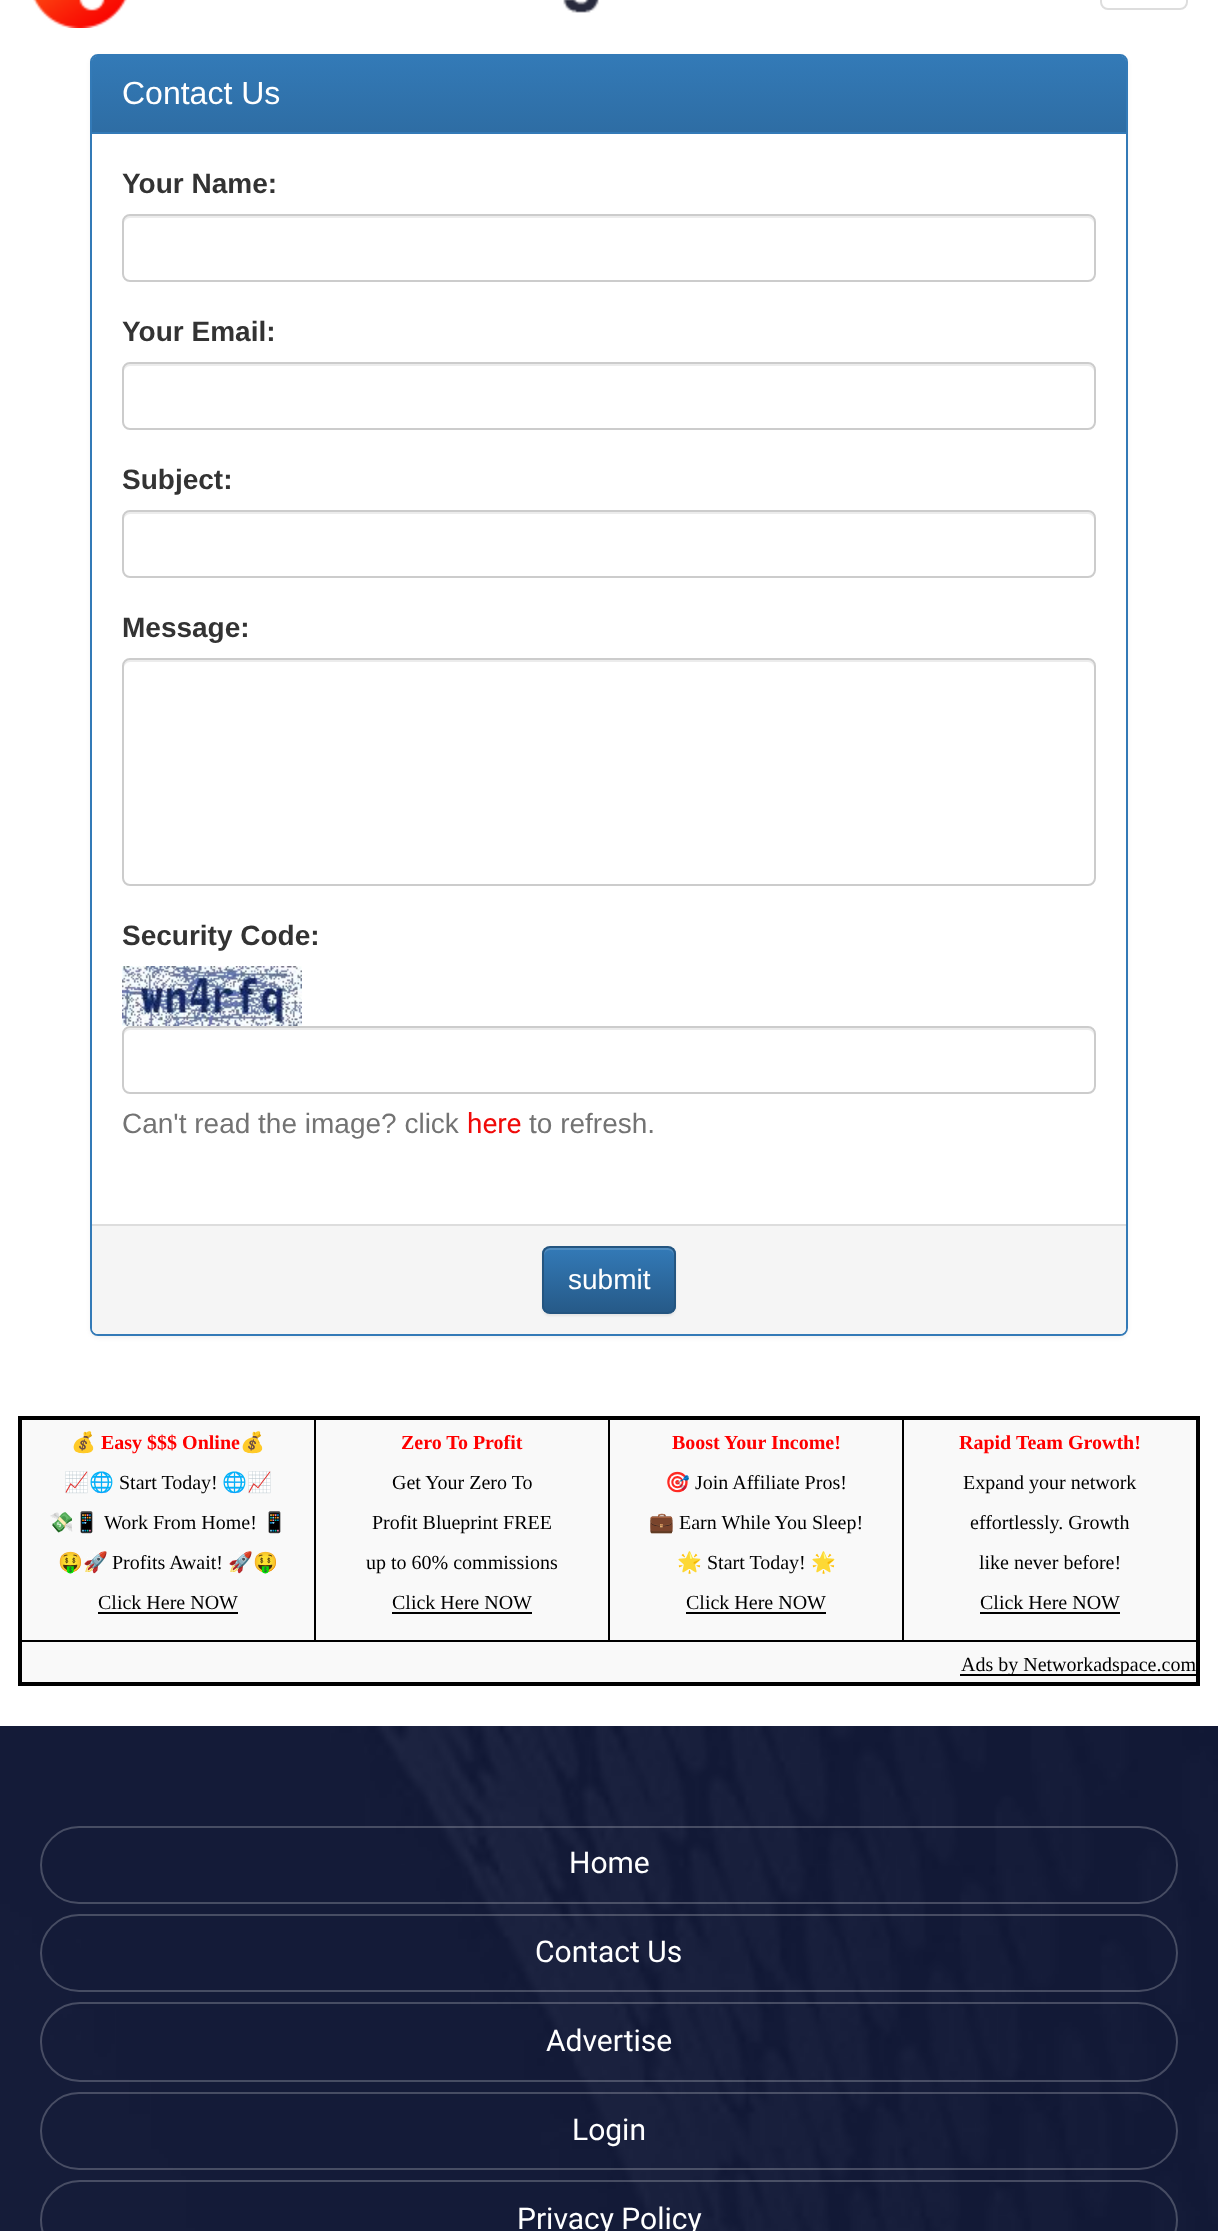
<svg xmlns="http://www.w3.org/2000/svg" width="1218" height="2231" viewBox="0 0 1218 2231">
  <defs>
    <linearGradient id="g1" gradientUnits="userSpaceOnUse" x1="609" y1="56" x2="609" y2="132"><stop offset="0" stop-color="rgb(51,122,183)"/><stop offset="1" stop-color="rgb(46,109,164)"/></linearGradient>
    <clipPath id="clip1"><rect x="542" y="1246" width="134" height="68" rx="8"/></clipPath>
    <linearGradient id="g2" gradientUnits="userSpaceOnUse" x1="609" y1="1248" x2="609" y2="1312"><stop offset="0" stop-color="rgb(51,122,183)"/><stop offset="1" stop-color="rgb(38,90,136)"/></linearGradient>
  </defs>
  <rect width="100%" height="100%" fill="rgb(255,255,255)"/>
  <image x="33" y="0" width="566" height="28" href="pic1.png"/>
  <rect x="1101" y="-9" width="86" height="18" rx="7" fill="none" stroke="rgb(221,221,221)" stroke-width="2"/>
  <rect x="90" y="56" width="1038" height="1282" rx="8" fill="rgba(0,0,0,0.05)" filter="blur(2px)"/>
  <rect x="91" y="55" width="1036" height="1280" rx="7" fill="rgb(255,255,255)" stroke="rgb(51,122,183)" stroke-width="2"/>
  <path d="M98 56H1120C1123.5 56 1126 58.5 1126 62V134H92V62C92 58.5 94.5 56 98 56Z" fill="rgb(51,122,183)"/>
  <path d="M98 56H1120C1123.5 56 1126 58.5 1126 62V132H92V62C92 58.5 94.5 56 98 56Z" fill="url(#g1)"/>
  <text x="122" y="104" font-family="Liberation Sans" font-size="32" fill="rgb(255,255,255)">Contact Us</text>
  <text x="122" y="193" font-family="Liberation Sans" font-size="28" font-weight="bold" fill="rgb(51,51,51)">Your Name:</text>
  <path d="M130 218H1088C1091 218 1094 221 1094 224V222C1094 219 1091 216 1088 216H130C127 216 124 219 124 222V224C124 221 127 218 130 218Z" fill="rgb(236,236,236)"/>
  <rect x="123" y="215" width="972" height="66" rx="7" fill="none" stroke="rgb(204,204,204)" stroke-width="2"/>
  <text x="122" y="341" font-family="Liberation Sans" font-size="28" font-weight="bold" fill="rgb(51,51,51)">Your Email:</text>
  <path d="M130 366H1088C1091 366 1094 369 1094 372V370C1094 367 1091 364 1088 364H130C127 364 124 367 124 370V372C124 369 127 366 130 366Z" fill="rgb(236,236,236)"/>
  <rect x="123" y="363" width="972" height="66" rx="7" fill="none" stroke="rgb(204,204,204)" stroke-width="2"/>
  <text x="122" y="489" font-family="Liberation Sans" font-size="28" font-weight="bold" fill="rgb(51,51,51)">Subject:</text>
  <path d="M130 514H1088C1091 514 1094 517 1094 520V518C1094 515 1091 512 1088 512H130C127 512 124 515 124 518V520C124 517 127 514 130 514Z" fill="rgb(236,236,236)"/>
  <rect x="123" y="511" width="972" height="66" rx="7" fill="none" stroke="rgb(204,204,204)" stroke-width="2"/>
  <text x="122" y="637" font-family="Liberation Sans" font-size="28" font-weight="bold" fill="rgb(51,51,51)">Message:</text>
  <path d="M130 662H1088C1091 662 1094 665 1094 668V666C1094 663 1091 660 1088 660H130C127 660 124 663 124 666V668C124 665 127 662 130 662Z" fill="rgb(236,236,236)"/>
  <rect x="123" y="659" width="972" height="226" rx="7" fill="none" stroke="rgb(204,204,204)" stroke-width="2"/>
  <text x="122" y="945" font-family="Liberation Sans" font-size="28" font-weight="bold" fill="rgb(51,51,51)">Security Code:</text>
  <image x="122" y="966" width="180" height="60" href="pic2.png"/>
  <path d="M130 1030H1088C1091 1030 1094 1033 1094 1036V1034C1094 1031 1091 1028 1088 1028H130C127 1028 124 1031 124 1034V1036C124 1033 127 1030 130 1030Z" fill="rgb(236,236,236)"/>
  <rect x="123" y="1027" width="972" height="66" rx="7" fill="none" stroke="rgb(204,204,204)" stroke-width="2"/>
  <text x="122" y="1133" font-family="Liberation Sans" font-size="28" fill="rgb(115,115,115)">Can't read the image? click</text>
  <text x="467" y="1133" font-family="Roboto" font-size="28" fill="rgb(240,10,9)">here</text>
  <text x="529" y="1133" font-family="Liberation Sans" font-size="28" fill="rgb(115,115,115)">to refresh.</text>
  <path d="M92 1224H1126V1328C1126 1331.5 1123.5 1334 1120 1334H98C94.5 1334 92 1331.5 92 1328Z" fill="rgb(245,245,245)"/>
  <rect x="92" y="1224" width="1034" height="2" fill="rgb(221,221,221)"/>
  <rect x="542" y="1248" width="134" height="68" rx="8" fill="rgba(0,0,0,0.07)" filter="blur(1px)"/>
  <g clip-path="url(#clip1)">
    <rect x="542" y="1248" width="134" height="64" fill="url(#g2)"/>
  </g>
  <path d="M550 1250H668C671 1250 674 1253 674 1256V1254C674 1251 671 1248 668 1248H550C547 1248 544 1251 544 1254V1256C544 1253 547 1250 550 1250Z" fill="rgba(255,255,255,0.15)"/>
  <rect x="543" y="1247" width="132" height="66" rx="7" fill="none" stroke="rgb(36,85,128)" stroke-width="2"/>
  <text x="568" y="1289" font-family="Liberation Sans" font-size="28" fill="rgb(255,255,255)">submit</text>
  <rect x="20" y="1640" width="1178" height="2" fill="rgb(0,0,0)"/>
  <rect x="314" y="1416" width="2" height="226" fill="rgb(0,0,0)"/>
  <rect x="608" y="1416" width="2" height="226" fill="rgb(0,0,0)"/>
  <rect x="902" y="1416" width="2" height="226" fill="rgb(0,0,0)"/>
  <rect x="18" y="1416" width="1182" height="4" fill="rgb(0,0,0)"/>
  <rect x="1196" y="1416" width="4" height="270" fill="rgb(0,0,0)"/>
  <rect x="18" y="1682" width="1182" height="4" fill="rgb(0,0,0)"/>
  <rect x="18" y="1416" width="4" height="270" fill="rgb(0,0,0)"/>
  <rect x="22" y="1420" width="292" height="220" fill="rgb(249,249,249)"/>
  <text x="71" y="1449" font-family="Noto Color Emoji" font-size="20" font-weight="bold" fill="rgb(255,0,0)">💰</text>
  <text x="101" y="1449" font-family="Liberation Serif" font-size="20" font-weight="bold" fill="rgb(255,0,0)">Easy $$$ Online</text>
  <text x="240" y="1449" font-family="Noto Color Emoji" font-size="20" font-weight="bold" fill="rgb(255,0,0)">💰</text>
  <text x="64" y="1489" font-family="Noto Color Emoji" font-size="20" fill="rgb(0,0,0)">📈🌐</text>
  <text x="119" y="1489" font-family="Liberation Serif" font-size="20" fill="rgb(0,0,0)">Start Today!</text>
  <g font-family="Noto Color Emoji" font-size="20" fill="rgb(0,0,0)">
    <text x="222" y="1489">🌐📈</text>
    <text x="49" y="1529">💸📱</text>
  </g>
  <text x="104" y="1529" font-family="Liberation Serif" font-size="20" fill="rgb(0,0,0)">Work From Home!</text>
  <g font-family="Noto Color Emoji" font-size="20" fill="rgb(0,0,0)">
    <text x="262" y="1529">📱</text>
    <text x="58" y="1569">🤑🚀</text>
  </g>
  <text x="112" y="1569" font-family="Liberation Serif" font-size="20" fill="rgb(0,0,0)">Profits Await!</text>
  <text x="228" y="1569" font-family="Noto Color Emoji" font-size="20" fill="rgb(0,0,0)">🚀🤑</text>
  <text x="98" y="1609" font-family="Liberation Serif" font-size="20" fill="rgb(0,0,0)">Click Here NOW</text>
  <rect x="98" y="1612" width="140" height="2" fill="rgb(0,0,0)"/>
  <rect x="316" y="1420" width="292" height="220" fill="rgb(249,249,249)"/>
  <text x="401" y="1449" font-family="Liberation Serif" font-size="20" font-weight="bold" fill="rgb(255,0,0)">Zero To Profit</text>
  <g font-family="Liberation Serif" font-size="20" fill="rgb(0,0,0)">
    <text x="392" y="1489">Get Your Zero To</text>
    <text x="372" y="1529">Profit Blueprint FREE</text>
    <text x="366" y="1569">up to 60% commissions</text>
    <text x="392" y="1609">Click Here NOW</text>
  </g>
  <rect x="392" y="1612" width="140" height="2" fill="rgb(0,0,0)"/>
  <rect x="610" y="1420" width="292" height="220" fill="rgb(249,249,249)"/>
  <text x="672" y="1449" font-family="Liberation Serif" font-size="20" font-weight="bold" fill="rgb(255,0,0)">Boost Your Income!</text>
  <text x="665" y="1489" font-family="Noto Color Emoji" font-size="20" fill="rgb(0,0,0)">🎯</text>
  <text x="695" y="1489" font-family="Liberation Serif" font-size="20" fill="rgb(0,0,0)">Join Affiliate Pros!</text>
  <text x="649" y="1529" font-family="Noto Color Emoji" font-size="20" fill="rgb(0,0,0)">💼</text>
  <text x="679" y="1529" font-family="Liberation Serif" font-size="20" fill="rgb(0,0,0)">Earn While You Sleep!</text>
  <text x="677" y="1569" font-family="Noto Color Emoji" font-size="20" fill="rgb(0,0,0)">🌟</text>
  <text x="707" y="1569" font-family="Liberation Serif" font-size="20" fill="rgb(0,0,0)">Start Today!</text>
  <text x="811" y="1569" font-family="Noto Color Emoji" font-size="20" fill="rgb(0,0,0)">🌟</text>
  <text x="686" y="1609" font-family="Liberation Serif" font-size="20" fill="rgb(0,0,0)">Click Here NOW</text>
  <rect x="686" y="1612" width="140" height="2" fill="rgb(0,0,0)"/>
  <rect x="904" y="1420" width="292" height="220" fill="rgb(249,249,249)"/>
  <text x="959" y="1449" font-family="Liberation Serif" font-size="20" font-weight="bold" fill="rgb(255,0,0)">Rapid Team Growth!</text>
  <g font-family="Liberation Serif" font-size="20" fill="rgb(0,0,0)">
    <text x="963" y="1489">Expand your network</text>
    <text x="970" y="1529">effortlessly. Growth</text>
    <text x="979" y="1569">like never before!</text>
    <text x="980" y="1609">Click Here NOW</text>
  </g>
  <rect x="980" y="1612" width="140" height="2" fill="rgb(0,0,0)"/>
  <rect x="22" y="1642" width="1174" height="40" fill="rgb(249,249,249)"/>
  <rect x="960" y="1674" width="236" height="2" fill="rgb(0,0,0)"/>
  <text x="961" y="1671" font-family="Liberation Serif" font-size="20" fill="rgb(0,0,0)">Ads by Networkadspace.com</text>
  <image x="0" y="1726" width="1218" height="505" href="pic3.png"/>
  <rect x="41" y="1827" width="1136" height="76" rx="38" fill="none" stroke="rgba(255,255,255,0.22)" stroke-width="2"/>
  <text x="569" y="1873" font-family="Roboto" font-size="30" fill="rgb(255,255,255)">Home</text>
  <rect x="41" y="1915" width="1136" height="76" rx="38" fill="none" stroke="rgba(255,255,255,0.22)" stroke-width="2"/>
  <text x="535" y="1962" font-family="Roboto" font-size="30" fill="rgb(255,255,255)">Contact Us</text>
  <rect x="41" y="2003" width="1136" height="78" rx="39" fill="none" stroke="rgba(255,255,255,0.22)" stroke-width="2"/>
  <text x="546" y="2051" font-family="Roboto" font-size="30" fill="rgb(255,255,255)">Advertise</text>
  <rect x="41" y="2093" width="1136" height="76" rx="38" fill="none" stroke="rgba(255,255,255,0.22)" stroke-width="2"/>
  <text x="572" y="2140" font-family="Roboto" font-size="30" fill="rgb(255,255,255)">Login</text>
  <rect x="41" y="2181" width="1136" height="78" rx="39" fill="none" stroke="rgba(255,255,255,0.22)" stroke-width="2"/>
  <text x="517" y="2229" font-family="Roboto" font-size="30" fill="rgb(255,255,255)">Privacy Policy</text>
</svg>
